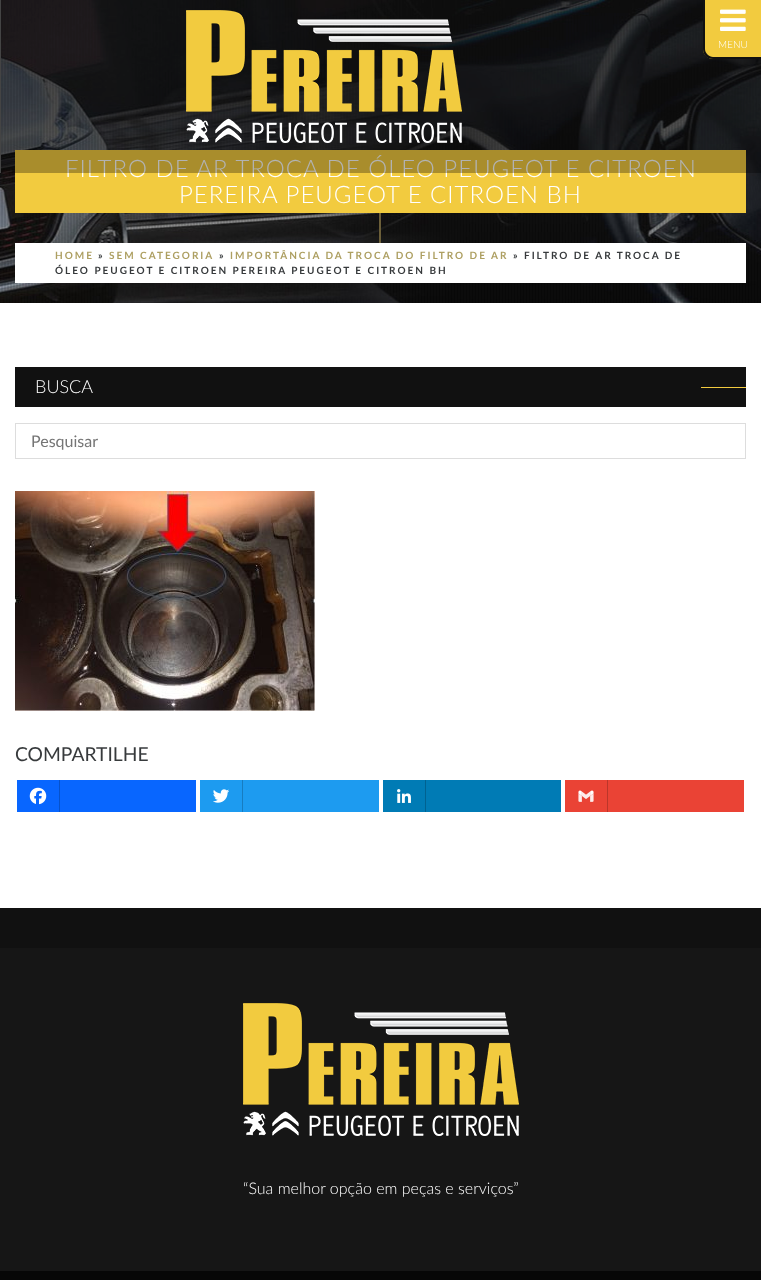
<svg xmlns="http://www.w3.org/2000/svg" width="761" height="1280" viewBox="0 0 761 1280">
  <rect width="100%" height="100%" fill="rgb(255,255,255)"/>
  <image x="0" y="0" width="761" height="303" href="pic3.png"/>
  <rect x="15" y="150" width="731" height="63" fill="rgb(242,203,63)"/>
  <text x="65" y="177" font-family="Lato" font-size="24" font-weight="300" letter-spacing="1" fill="rgb(255,255,255)">FILTRO DE AR TROCA DE ÓLEO PEUGEOT E CITROEN</text>
  <rect x="1" y="0" width="760" height="173" fill="rgba(0,0,0,0.3)"/>
  <rect x="0" y="0" width="1" height="173" fill="rgb(68,68,68)"/>
  <image x="186" y="10" width="276" height="133" href="pic1.png"/>
  <path d="M703 0H761V59H713C707.5 59 703 54.5 703 49Z" fill="rgb(242,203,63)"/>
  <path d="M703 0H761V59H713C707 59 703 55 703 49ZM705 0H761V57H713C709 57 705 53 705 49Z" fill="rgb(17,17,17)" fill-rule="evenodd"/>
  <image x="720" y="9" width="26" height="22" href="pic2.png"/>
  <text x="718" y="48" font-family="Lato" font-size="10" font-weight="300" fill="rgb(255,255,255)">MENU</text>
  <text x="179" y="203" font-family="Lato" font-size="24" font-weight="300" letter-spacing="1" fill="rgb(255,255,255)">PEREIRA PEUGEOT E CITROEN BH</text>
  <rect x="379" y="213" width="2" height="30" fill="rgb(108,95,57)"/>
  <rect x="15" y="243" width="731" height="40" fill="rgb(255,255,255)"/>
  <text x="55" y="259" font-family="Lato" font-size="10" font-weight="bold" letter-spacing="2" fill="rgb(173,159,97)">HOME</text>
  <text x="98" y="259" font-family="Lato" font-size="10" font-weight="bold" letter-spacing="2" fill="rgb(55,58,60)">»</text>
  <text x="109" y="259" font-family="Lato" font-size="10" font-weight="bold" letter-spacing="2" fill="rgb(173,159,97)">SEM CATEGORIA</text>
  <text x="219" y="259" font-family="Lato" font-size="10" font-weight="bold" letter-spacing="2" fill="rgb(55,58,60)">»</text>
  <text x="230" y="259" font-family="Lato" font-size="10" font-weight="bold" letter-spacing="2" fill="rgb(173,159,97)">IMPORTÂNCIA DA TROCA DO FILTRO DE AR</text>
  <g font-family="Lato" font-size="10" font-weight="bold" letter-spacing="2" fill="rgb(55,58,60)">
    <text x="513" y="259">» FILTRO DE AR TROCA DE</text>
    <text x="55" y="274">ÓLEO PEUGEOT E CITROEN PEREIRA PEUGEOT E CITROEN BH</text>
  </g>
  <rect x="15" y="367" width="731" height="40" fill="rgb(17,17,17)"/>
  <text x="35" y="393" font-family="Lato" font-size="18" font-weight="300" fill="rgb(255,255,255)">BUSCA</text>
  <rect x="701" y="387" width="45" height="1" fill="rgb(242,203,63)"/>
  <rect x="15.5" y="423.5" width="730" height="35" fill="none" stroke="rgb(221,221,221)"/>
  <text x="31" y="447" font-family="Lato" font-size="16" fill="rgb(117,117,117)">Pesquisar</text>
  <image x="15" y="491" width="300" height="220" href="pic4.png"/>
  <text x="15" y="761" font-family="Lato" font-size="19.25" fill="rgb(55,58,60)">COMPARTILHE</text>
  <rect x="17" y="780" width="179" height="32" fill="rgb(8,102,255)"/>
  <rect x="59" y="780" width="1" height="32" fill="rgb(6,82,204)"/>
  <image x="29" y="787" width="18" height="18" href="pic5.png"/>
  <rect x="200" y="780" width="179" height="32" fill="rgb(29,155,240)"/>
  <rect x="242" y="780" width="1" height="32" fill="rgb(23,124,192)"/>
  <image x="213" y="789" width="16" height="14" href="pic6.png"/>
  <rect x="383" y="780" width="178" height="32" fill="rgb(0,123,181)"/>
  <rect x="425" y="780" width="1" height="32" fill="rgb(0,98,145)"/>
  <image x="397" y="789" width="14" height="14" href="pic7.png"/>
  <rect x="565" y="780" width="179" height="32" fill="rgb(234,67,53)"/>
  <rect x="607" y="780" width="1" height="32" fill="rgb(187,54,42)"/>
  <image x="578" y="790" width="16" height="12" href="pic8.png"/>
  <rect x="0" y="908" width="761" height="40" fill="rgb(17,17,17)"/>
  <rect x="0" y="948" width="761" height="323" fill="rgb(22,22,22)"/>
  <image x="243" y="1003" width="276" height="133" href="pic9.png"/>
  <text x="243" y="1194" font-family="Lato" font-size="16" font-weight="300" fill="rgb(255,255,255)">“Sua melhor opção em peças e serviços”</text>
  <rect x="0" y="1271" width="761" height="9" fill="rgb(7,7,7)"/>
</svg>
